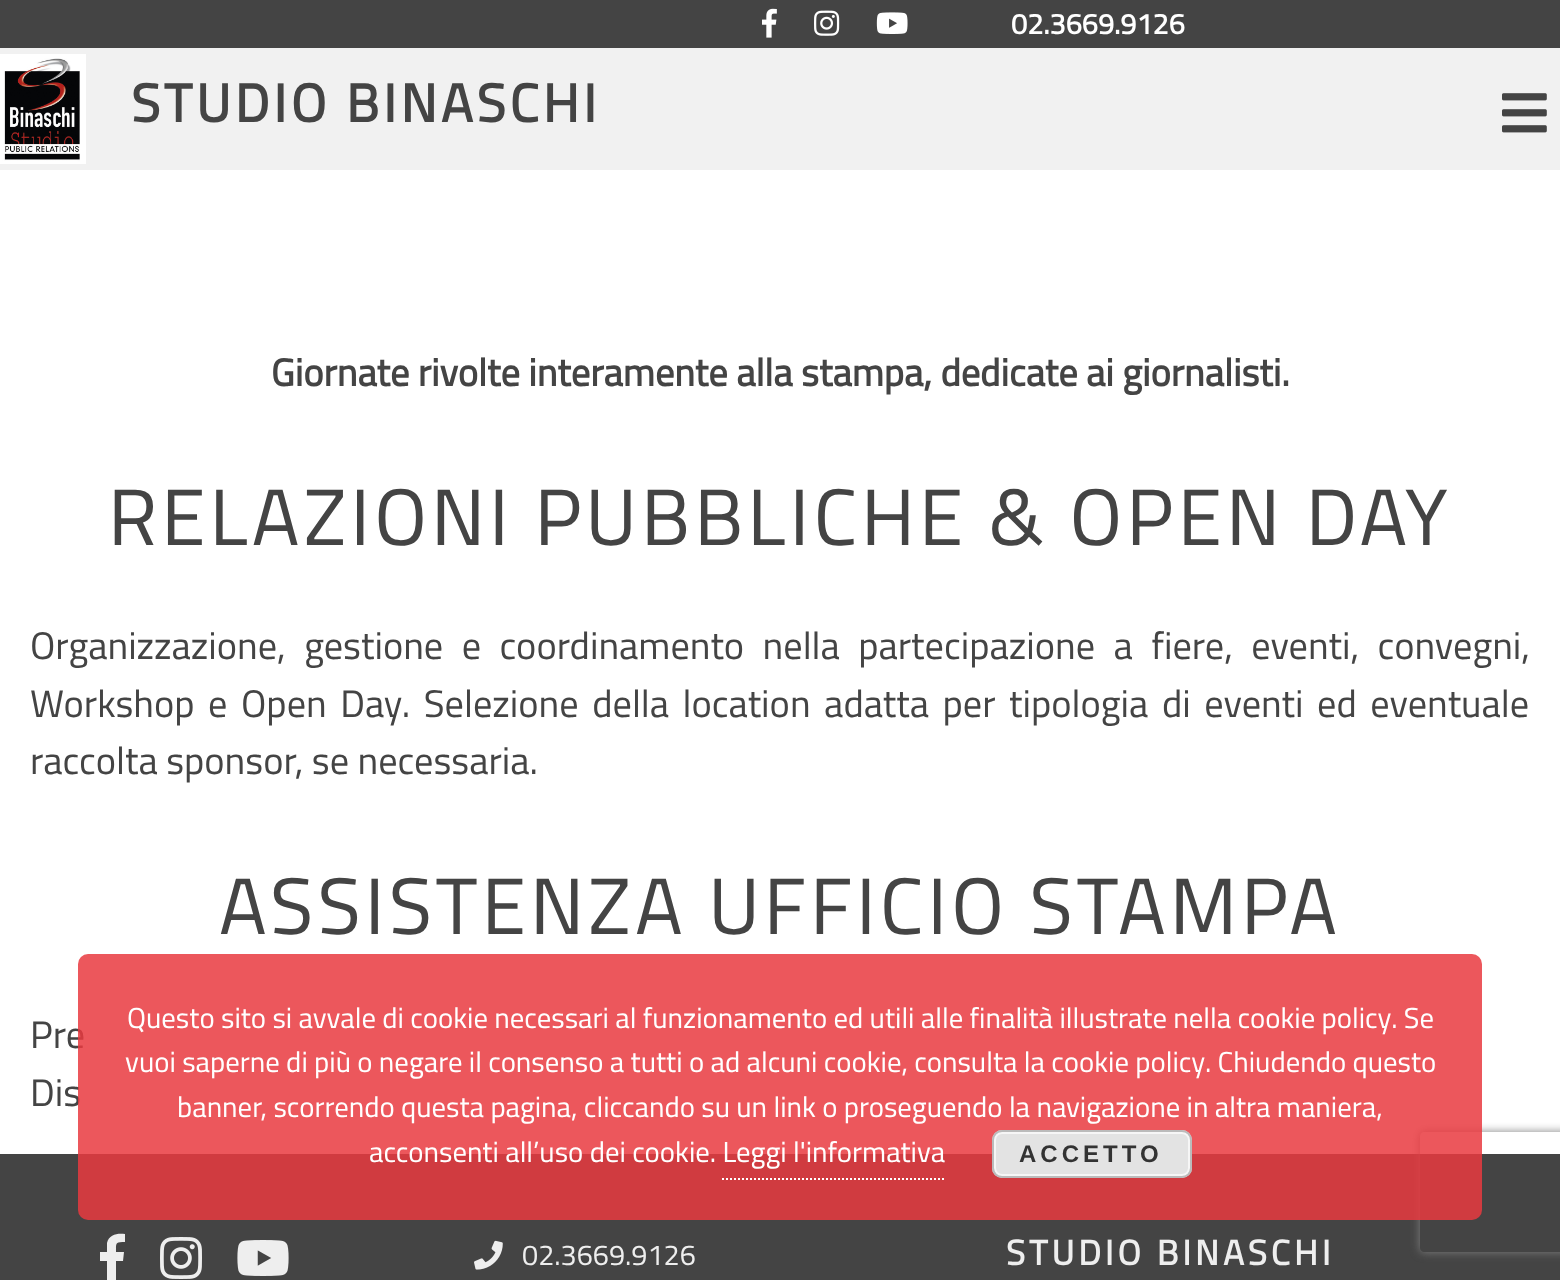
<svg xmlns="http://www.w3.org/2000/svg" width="1560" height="1280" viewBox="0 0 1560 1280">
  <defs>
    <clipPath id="clip1"><path d="M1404 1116H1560V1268H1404ZM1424 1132H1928C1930 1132 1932 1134 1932 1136V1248C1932 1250 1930 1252 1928 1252H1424C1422 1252 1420 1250 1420 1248V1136C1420 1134 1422 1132 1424 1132Z" clip-rule="evenodd"/></clipPath>
  </defs>
  <rect width="100%" height="100%" fill="rgb(255,255,255)"/>
  <rect x="0" y="48" width="1560" height="122" fill="rgba(240,240,240,0.95)"/>
  <rect x="0" y="0" width="1560" height="48" fill="rgb(68,68,68)"/>
  <image x="762" y="8" width="15" height="30" href="pic1.png"/>
  <image x="814" y="10" width="26" height="26" href="pic2.png"/>
  <image x="876" y="12" width="32" height="22" href="pic3.png"/>
  <text x="1011" y="34" font-family="Cairo" font-size="28.8" font-weight="bold" fill="rgb(255,255,255)">02.3669.9126</text>
  <image x="0" y="54" width="86" height="110" href="pic4.png"/>
  <text x="131" y="122" font-family="Cairo" font-size="53.75" font-weight="bold" letter-spacing="4" fill="rgb(68,68,68)">STUDIO BINASCHI</text>
  <image x="1502" y="93" width="45" height="40" href="pic5.png"/>
  <text x="271" y="386" font-family="Cairo" font-size="38.4" font-weight="bold" fill="rgb(68,68,68)">Giornate rivolte interamente alla stampa, dedicate ai giornalisti.</text>
  <text x="108" y="545" font-family="Cairo" font-size="80" letter-spacing="4" fill="rgb(68,68,68)">RELAZIONI PUBBLICHE &amp; OPEN DAY</text>
  <g font-family="Cairo" font-size="38.4" fill="rgb(68,68,68)">
    <text>
      <tspan x="30" y="659" word-spacing="10">Organizzazione, gestione e coordinamento nella partecipazione a fiere, eventi, convegni,</tspan>
      <tspan x="30" y="717" word-spacing="5.1">Workshop e Open Day. Selezione della location adatta per tipologia di eventi ed eventuale</tspan>
      <tspan x="30" y="774">raccolta sponsor, se necessaria.</tspan>
    </text>
  </g>
  <text x="219" y="934" font-family="Cairo" font-size="80" letter-spacing="4" fill="rgb(68,68,68)">ASSISTENZA UFFICIO STAMPA</text>
  <g font-family="Cairo" font-size="38.4" fill="rgb(68,68,68)">
    <text>
      <tspan x="30" y="1048">Pre</tspan>
      <tspan x="30" y="1106">Dis</tspan>
    </text>
  </g>
  <rect x="0" y="1154" width="1560" height="126" fill="rgb(68,68,68)"/>
  <path d="M107 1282V1261H100V1252H107V1243C109 1234 118 1233 125 1234V1242C115 1242 116 1243 116 1252H124L123 1261H116V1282Z" fill="rgb(238,238,238)"/>
  <image x="160" y="1237" width="42" height="42" href="pic6.png"/>
  <image x="237" y="1240" width="52" height="36" href="pic7.png"/>
  <image x="474" y="1240" width="29" height="30" href="pic8.png"/>
  <text x="522" y="1265" font-family="Cairo" font-size="28.8" fill="rgb(238,238,238)">02.3669.9126</text>
  <text x="1006" y="1265" font-family="Cairo" font-size="35.25" font-weight="bold" letter-spacing="4" fill="rgb(238,238,238)">STUDIO BINASCHI</text>
  <g clip-path="url(#clip1)">
    <rect x="1420" y="1132" width="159" height="120" rx="4" fill="rgb(128,128,128)" filter="blur(5px)"/>
  </g>
  <rect x="78" y="954" width="1404" height="266" rx="10" fill="rgba(233,58,64,0.85)"/>
  <g font-family="Cairo" font-size="28.8" fill="rgb(255,255,255)">
    <text x="127" y="1028">Questo sito si avvale di cookie necessari al funzionamento ed utili alle finalità illustrate nella cookie policy. Se</text>
    <text x="125" y="1072">vuoi saperne di più o negare il consenso a tutti o ad alcuni cookie, consulta la cookie policy. Chiudendo questo</text>
    <text x="177" y="1117">banner, scorrendo questa pagina, cliccando su un link o proseguendo la navigazione in altra maniera,</text>
    <text x="369" y="1162">acconsenti all’uso dei cookie. Leggi l'informativa</text>
  </g>
  <rect x="992" y="1130" width="200" height="48" rx="10" fill="rgb(227,227,227)"/>
  <rect x="995" y="1133" width="194" height="42" rx="7" fill="none" stroke="rgb(246,246,246)" stroke-width="2"/>
  <rect x="993" y="1131" width="198" height="46" rx="9" fill="none" stroke="rgb(187,187,187)" stroke-width="2"/>
  <text x="1019" y="1162" font-family="Liberation Sans" font-size="24" font-weight="bold" letter-spacing="4" fill="rgb(51,51,51)">ACCETTO</text>
  <path d="M722 1179H944" fill="none" stroke="rgb(255,255,255)" stroke-width="2" stroke-dasharray="2 2"/>
</svg>
